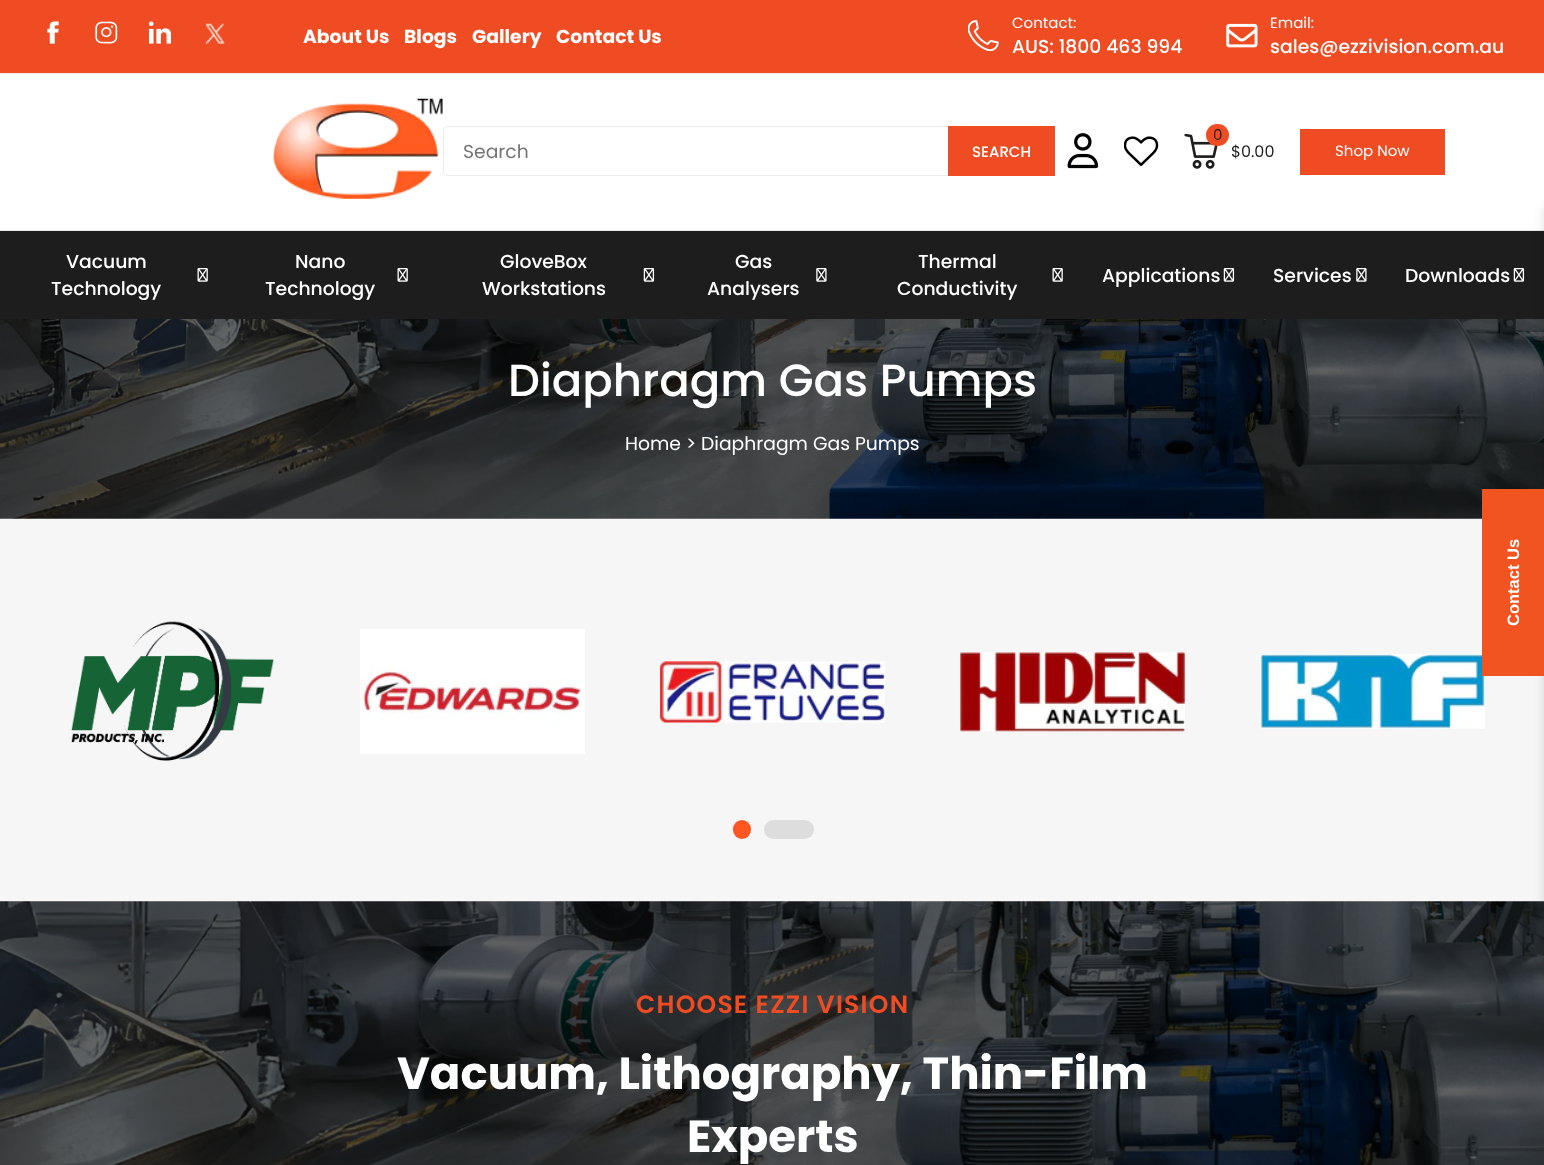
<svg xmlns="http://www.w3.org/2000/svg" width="1544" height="1165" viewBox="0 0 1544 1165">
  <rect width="100%" height="100%" fill="rgb(246,246,246)"/>
  <rect x="0" y="0" width="1544" height="73" fill="rgb(240,76,35)"/>
  <rect x="0" y="73" width="1544" height="1" fill="rgb(232,232,232)"/>
  <image x="47" y="21" width="12" height="23" href="pic1.png"/>
  <image x="95" y="21" width="23" height="23" href="pic2.png"/>
  <image x="149" y="21" width="22" height="23" href="pic3.png"/>
  <image x="205" y="23" width="20" height="21" href="pic4.png"/>
  <g font-family="Poppins" font-size="18.75" font-weight="bold" fill="rgb(255,255,255)">
    <text x="303" y="43">About Us</text>
    <text x="404" y="43">Blogs</text>
    <text x="472" y="43">Gallery</text>
    <text x="556" y="43">Contact Us</text>
  </g>
  <image x="968" y="20" width="31" height="31" href="pic5.png"/>
  <text x="1012" y="28" font-family="Poppins" font-size="15" fill="rgb(255,255,255)">Contact:</text>
  <text x="1012" y="53" font-family="Poppins" font-size="18.75" font-weight="500" fill="rgb(255,255,255)">AUS: 1800 463 994</text>
  <image x="1226" y="23" width="32" height="25" href="pic6.png"/>
  <text x="1270" y="28" font-family="Poppins" font-size="15" fill="rgb(255,255,255)">Email:</text>
  <text x="1270" y="53" font-family="Poppins" font-size="18.75" font-weight="500" fill="rgb(255,255,255)">sales@ezzivision.com.au</text>
  <rect x="0" y="74" width="1544" height="156" fill="rgb(255,255,255)"/>
  <image x="273" y="98" width="170" height="101" href="pic7.png"/>
  <rect x="443.5" y="126.5" width="611" height="49" rx="3.5" fill="none" stroke="rgb(235,235,235)"/>
  <text x="463" y="158" font-family="Poppins" font-size="18.75" fill="rgb(117,117,117)">Search</text>
  <rect x="948" y="126" width="107" height="50" fill="rgb(240,76,35)"/>
  <text x="972" y="157" font-family="Poppins" font-size="15" font-weight="500" fill="rgb(255,255,255)">SEARCH</text>
  <image x="1067" y="133" width="32" height="36" href="pic8.png"/>
  <image x="1124" y="136" width="35" height="30" href="pic9.png"/>
  <image x="1184" y="134" width="34" height="35" href="pic10.png"/>
  <rect x="1206" y="124" width="23" height="22" rx="11" fill="rgb(240,76,35)"/>
  <text x="1213" y="140" font-family="Poppins" font-size="15" fill="rgb(30,30,30)">0</text>
  <text x="1231" y="157" font-family="Poppins" font-size="16" fill="rgb(30,30,30)">$0.00</text>
  <rect x="1300" y="129" width="145" height="46" fill="rgb(240,76,35)"/>
  <text x="1335" y="156" font-family="Poppins" font-size="15" fill="rgb(255,255,255)">Shop Now</text>
  <rect x="0" y="230" width="1544" height="1" fill="rgb(232,232,232)"/>
  <rect x="0" y="231" width="1544" height="88" fill="rgb(29,29,29)"/>
  <g font-family="Poppins" font-size="18.75" font-weight="500" fill="rgb(255,255,255)">
    <text x="66" y="268">Vacuum</text>
    <text x="51" y="295">Technology</text>
  </g>
  <image x="197" y="268" width="11" height="14" href="pic11.png"/>
  <g font-family="Poppins" font-size="18.75" font-weight="500" fill="rgb(255,255,255)">
    <text x="295" y="268">Nano</text>
    <text x="265" y="295">Technology</text>
  </g>
  <image x="397" y="268" width="11" height="14" href="pic11.png"/>
  <g font-family="Poppins" font-size="18.75" font-weight="500" fill="rgb(255,255,255)">
    <text x="500" y="268">GloveBox</text>
    <text x="482" y="295">Workstations</text>
  </g>
  <image x="643" y="268" width="12" height="14" href="pic12.png"/>
  <g font-family="Poppins" font-size="18.75" font-weight="500" fill="rgb(255,255,255)">
    <text x="735" y="268">Gas</text>
    <text x="707" y="295">Analysers</text>
  </g>
  <image x="816" y="268" width="11" height="14" href="pic13.png"/>
  <g font-family="Poppins" font-size="18.75" font-weight="500" fill="rgb(255,255,255)">
    <text x="918" y="268">Thermal</text>
    <text x="897" y="295">Conductivity</text>
  </g>
  <image x="1052" y="268" width="11" height="14" href="pic11.png"/>
  <text x="1102" y="282" font-family="Poppins" font-size="18.75" font-weight="500" fill="rgb(255,255,255)">Applications</text>
  <image x="1223" y="268" width="12" height="14" href="pic12.png"/>
  <text x="1273" y="282" font-family="Poppins" font-size="18.75" font-weight="500" fill="rgb(255,255,255)">Services</text>
  <image x="1356" y="268" width="11" height="14" href="pic13.png"/>
  <text x="1405" y="282" font-family="Poppins" font-size="18.75" font-weight="500" fill="rgb(255,255,255)">Downloads</text>
  <image x="1513" y="268" width="12" height="14" href="pic12.png"/>
  <image x="0" y="319" width="1544" height="200" href="pic14.png"/>
  <text x="508" y="396" font-family="Poppins" font-size="45" font-weight="500" fill="rgb(255,255,255)">Diaphragm Gas Pumps</text>
  <text x="625" y="450" font-family="Poppins" font-size="18.75" fill="rgb(255,255,255)">Home &gt; Diaphragm Gas Pumps</text>
  <image x="71" y="621" width="203" height="140" href="pic15.png"/>
  <image x="360" y="629" width="225" height="125" href="pic16.png"/>
  <image x="660" y="661" width="225" height="62" href="pic17.png"/>
  <image x="960" y="652" width="225" height="80" href="pic18.png"/>
  <image x="1260" y="653" width="225" height="76" href="pic19.png"/>
  <rect x="733" y="820" width="18" height="19" rx="9" fill="rgb(255,87,34)"/>
  <rect x="764" y="820" width="50" height="19" rx="9.5" fill="rgb(221,221,221)"/>
  <image x="0" y="901" width="1544" height="264" href="pic20.png"/>
  <text x="636" y="1013" font-family="Poppins" font-size="25" font-weight="600" letter-spacing="1.25" fill="rgb(240,76,35)">CHOOSE EZZI VISION</text>
  <g font-family="Poppins" font-size="45" font-weight="bold" fill="rgb(255,255,255)">
    <text x="397" y="1089">Vacuum, Lithography, Thin-Film</text>
    <text x="687" y="1152">Experts</text>
  </g>
  <rect x="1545" y="204" width="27" height="762" rx="10" fill="rgba(0,0,0,0.15)" filter="blur(6px)"/>
  <rect x="1482" y="489" width="62" height="187" fill="rgb(242,84,33)"/>
  <text x="1519" y="626" transform="rotate(-90 1519 626)" font-family="Liberation Sans" font-size="16.5" font-weight="bold" fill="rgb(255,255,255)">Contact Us</text>
</svg>
